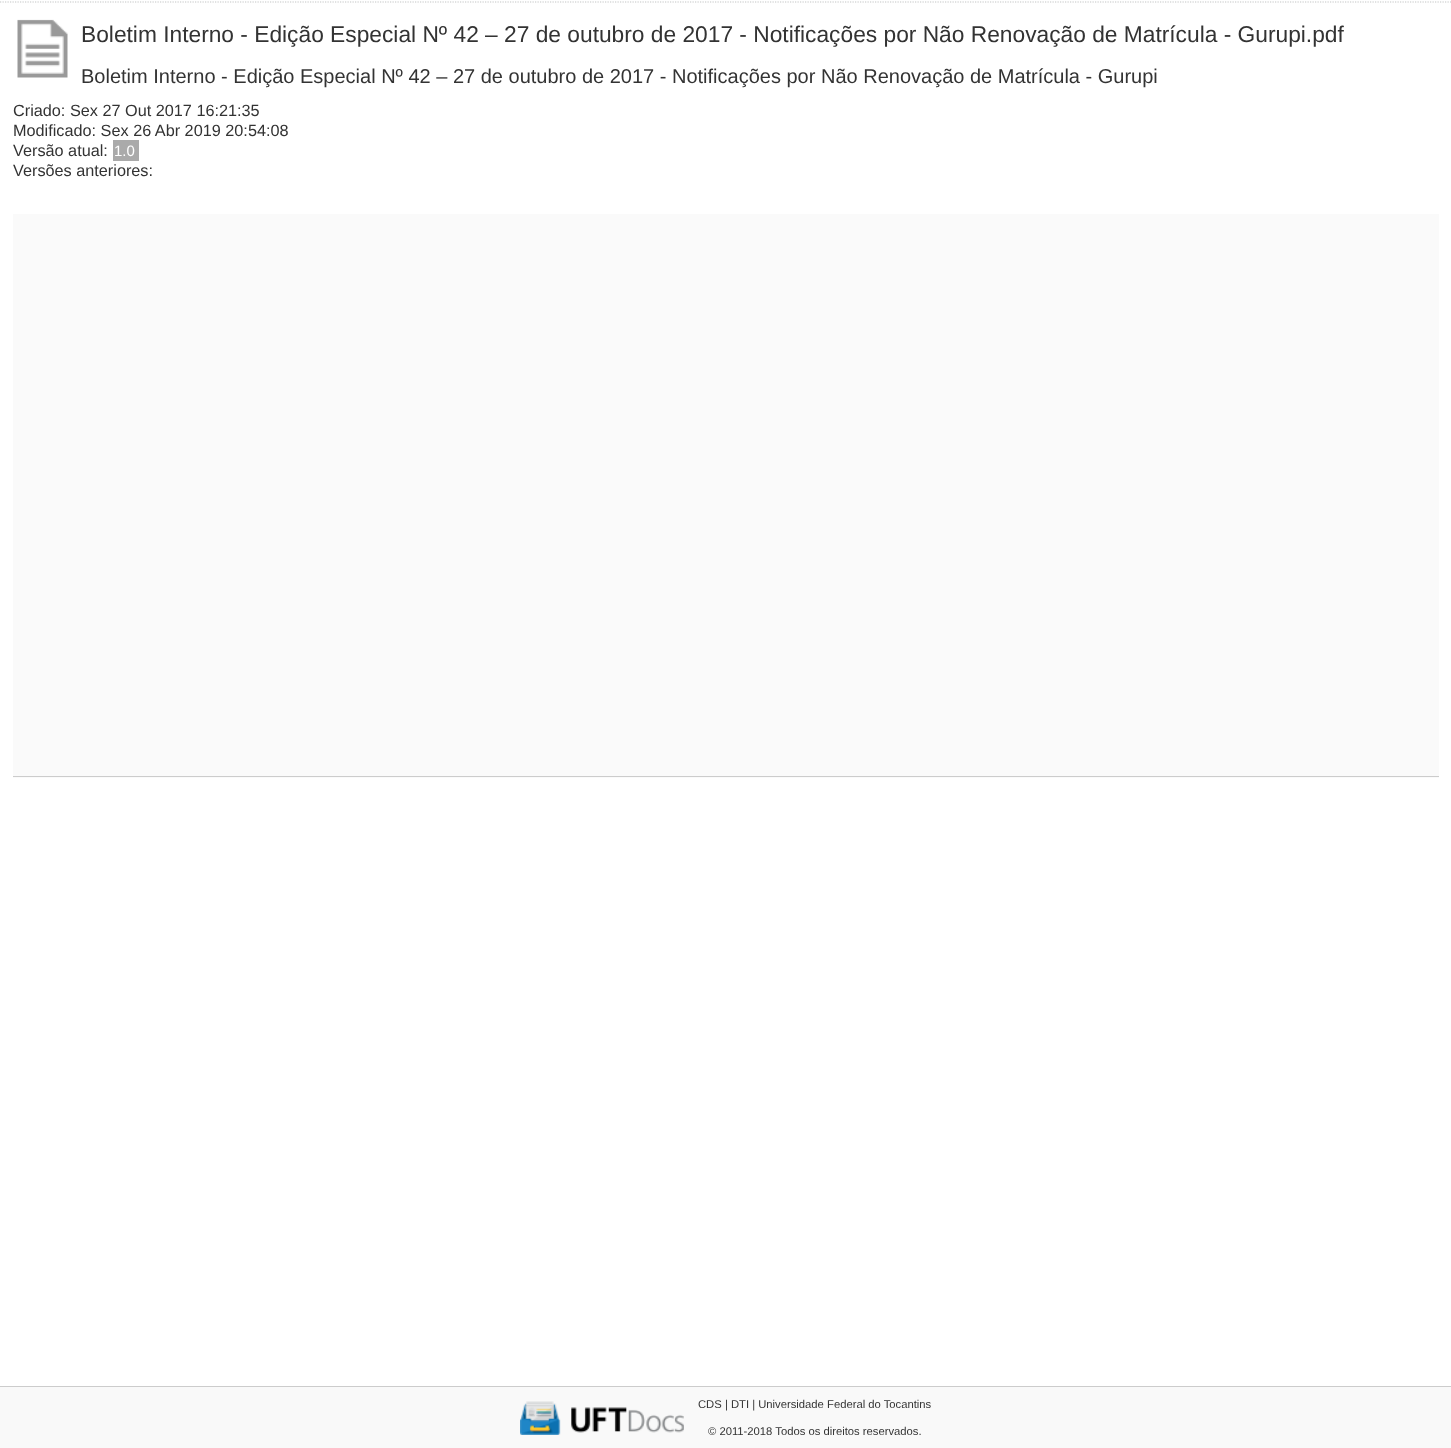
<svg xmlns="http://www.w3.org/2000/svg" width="1451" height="1448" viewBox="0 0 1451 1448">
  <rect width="100%" height="100%" fill="rgb(255,255,255)"/>
  <path d="M0 2H1451" fill="none" stroke="rgb(196,197,197)" stroke-width="1.2" stroke-dasharray="1.25 1.25"/>
  <image x="17" y="19" width="51" height="59" href="pic1.png"/>
  <text x="81" y="42" font-family="Liberation Sans" font-size="22.75" fill="rgb(51,51,51)">Boletim Interno - Edição Especial Nº 42 – 27 de outubro de 2017 - Notificações por Não Renovação de Matrícula - Gurupi.pdf</text>
  <text x="81" y="83" font-family="Liberation Sans" font-size="20" fill="rgb(51,51,51)">Boletim Interno - Edição Especial Nº 42 – 27 de outubro de 2017 - Notificações por Não Renovação de Matrícula - Gurupi</text>
  <g font-family="Liberation Sans" font-size="16.25" fill="rgb(51,51,51)">
    <text>
      <tspan x="13" y="116">Criado: Sex 27 Out 2017 16:21:35</tspan>
      <tspan x="13" y="136">Modificado: Sex 26 Abr 2019 20:54:08</tspan>
      <tspan x="13" y="156">Versão atual:</tspan>
    </text>
  </g>
  <rect x="113" y="140" width="26" height="21" fill="rgb(170,170,170)"/>
  <text x="114" y="156" font-family="Liberation Sans" font-size="15" fill="rgb(255,255,255)">1.0</text>
  <text x="13" y="176" font-family="Liberation Sans" font-size="16.25" fill="rgb(51,51,51)">Versões anteriores:</text>
  <rect x="13" y="214" width="1426" height="564" fill="rgb(250,250,250)"/>
  <rect x="13" y="776" width="1426" height="1" fill="rgb(204,204,204)"/>
  <rect x="0" y="1387" width="1451" height="61" fill="rgb(249,249,249)"/>
  <rect x="0" y="1386" width="1451" height="1" fill="rgb(204,204,204)"/>
  <image x="520" y="1401" width="164" height="34" href="pic2.png"/>
  <g font-family="Liberation Sans" font-size="11.25" fill="rgb(51,51,51)">
    <text x="698" y="1408">CDS | DTI | Universidade Federal do Tocantins</text>
    <text x="708" y="1435">© 2011-2018 Todos os direitos reservados.</text>
  </g>
</svg>
